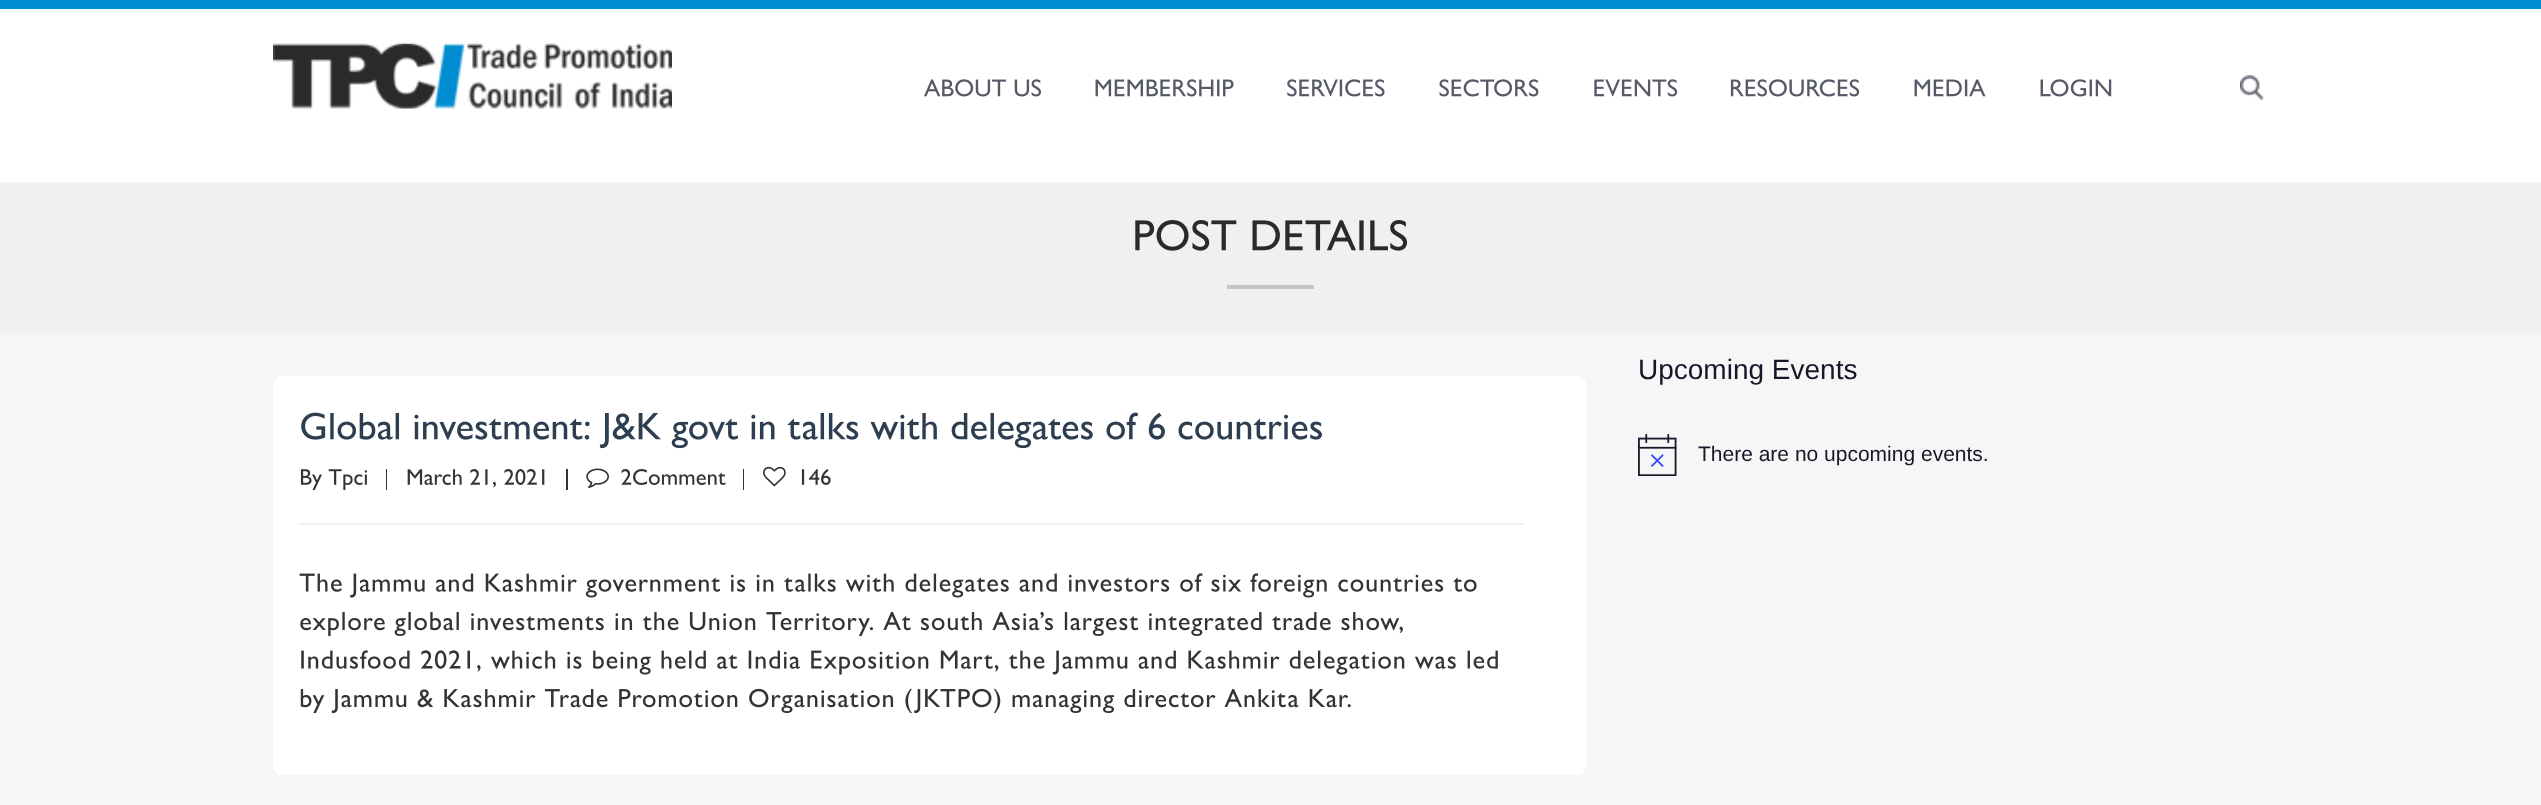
<svg xmlns="http://www.w3.org/2000/svg" width="2541" height="805" viewBox="0 0 2541 805">
  <rect width="100%" height="100%" fill="rgb(255,255,255)"/>
  <rect x="0" y="0" width="2541" height="9" fill="rgb(0,140,209)"/>
  <rect x="0" y="182" width="2541" height="2" fill="rgb(242,242,242)"/>
  <image x="273" y="43" width="399" height="66" href="pic1.png"/>
  <image x="924" y="79" width="117" height="18" href="pic2.png"/>
  <image x="1095" y="79" width="139" height="18" href="pic3.png"/>
  <image x="1287" y="79" width="98" height="18" href="pic4.png"/>
  <image x="1439" y="79" width="100" height="18" href="pic5.png"/>
  <image x="1594" y="79" width="84" height="18" href="pic6.png"/>
  <image x="1730" y="79" width="130" height="18" href="pic7.png"/>
  <image x="1914" y="79" width="72" height="18" href="pic8.png"/>
  <image x="2040" y="79" width="72" height="18" href="pic9.png"/>
  <image x="2240" y="75" width="24" height="25" href="pic10.png"/>
  <rect x="0" y="184" width="2541" height="149" fill="rgb(240,240,240)"/>
  <image x="1135" y="220" width="272" height="31" href="pic11.png"/>
  <rect x="1227" y="285" width="87" height="4" fill="rgb(197,197,197)"/>
  <rect x="0" y="333" width="2541" height="472" fill="rgb(246,246,246)"/>
  <rect x="273" y="376" width="1313" height="399" rx="9" fill="rgb(255,255,255)"/>
  <image x="301" y="412" width="1021" height="37" href="pic12.png"/>
  <image x="300" y="469" width="67" height="21" href="pic13.png"/>
  <rect x="386" y="469" width="1" height="21" fill="rgb(51,51,51)"/>
  <image x="407" y="469" width="138" height="19" href="pic14.png"/>
  <rect x="566" y="469" width="2" height="21" fill="rgb(51,51,51)"/>
  <image x="586" y="468" width="23" height="20" href="pic15.png"/>
  <image x="621" y="469" width="105" height="16" href="pic16.png"/>
  <rect x="743" y="469" width="1" height="21" fill="rgb(51,51,51)"/>
  <image x="763" y="466" width="23" height="21" href="pic17.png"/>
  <image x="801" y="469" width="30" height="16" href="pic18.png"/>
  <rect x="299" y="523" width="1225" height="2" fill="rgb(236,240,241)"/>
  <image x="299" y="573" width="1178" height="25" href="pic19.png"/>
  <image x="300" y="611" width="1103" height="26" href="pic20.png"/>
  <image x="301" y="650" width="1197" height="25" href="pic21.png"/>
  <image x="300" y="688" width="1051" height="26" href="pic22.png"/>
  <text x="1638" y="379" font-family="Liberation Sans" font-size="28" fill="rgb(20,24,39)">Upcoming Events</text>
  <image x="1638" y="434" width="39" height="42" href="pic23.png"/>
  <text x="1698" y="461" font-family="Liberation Sans" font-size="21" fill="rgb(20,24,39)">There are no upcoming events.</text>
</svg>
